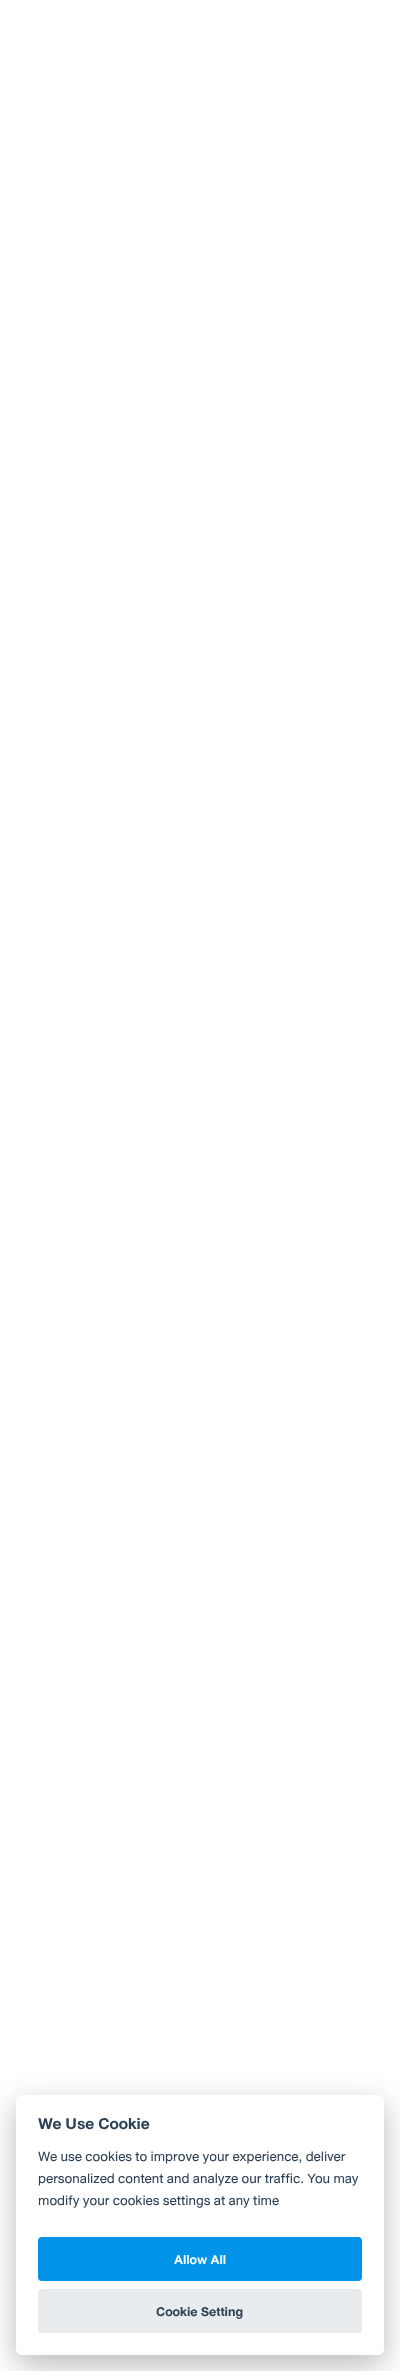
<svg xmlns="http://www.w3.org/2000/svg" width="400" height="2371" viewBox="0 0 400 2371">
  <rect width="100%" height="100%" fill="rgb(255,255,255)"/>
  <rect x="16" y="2105" width="368" height="260" rx="6" fill="rgba(2,2,3,0.28)" filter="blur(15px)"/>
  <rect x="16" y="2095" width="368" height="260" rx="6" fill="rgb(255,255,255)"/>
  <text x="38" y="2129" font-family="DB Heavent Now" font-size="16.75" font-weight="bold" fill="rgb(45,65,86)">We Use Cookie</text>
  <g font-family="DB Heavent Now" font-size="14.4" fill="rgb(45,65,86)">
    <text>
      <tspan x="38" y="2161">We use cookies to improve your experience, deliver</tspan>
      <tspan x="38" y="2183">personalized content and analyze our traffic. You may</tspan>
      <tspan x="38" y="2205">modify your cookies settings at any time</tspan>
    </text>
  </g>
  <rect x="38" y="2237" width="324" height="44" rx="4" fill="rgb(0,147,232)"/>
  <text x="174" y="2264" font-family="DB Heavent Now" font-size="13.5" font-weight="bold" fill="rgb(255,255,255)">Allow All</text>
  <rect x="38" y="2289" width="324" height="44" rx="4" fill="rgb(233,236,238)"/>
  <text x="156" y="2316" font-family="DB Heavent Now" font-size="13.5" font-weight="bold" fill="rgb(45,65,86)">Cookie Setting</text>
</svg>
